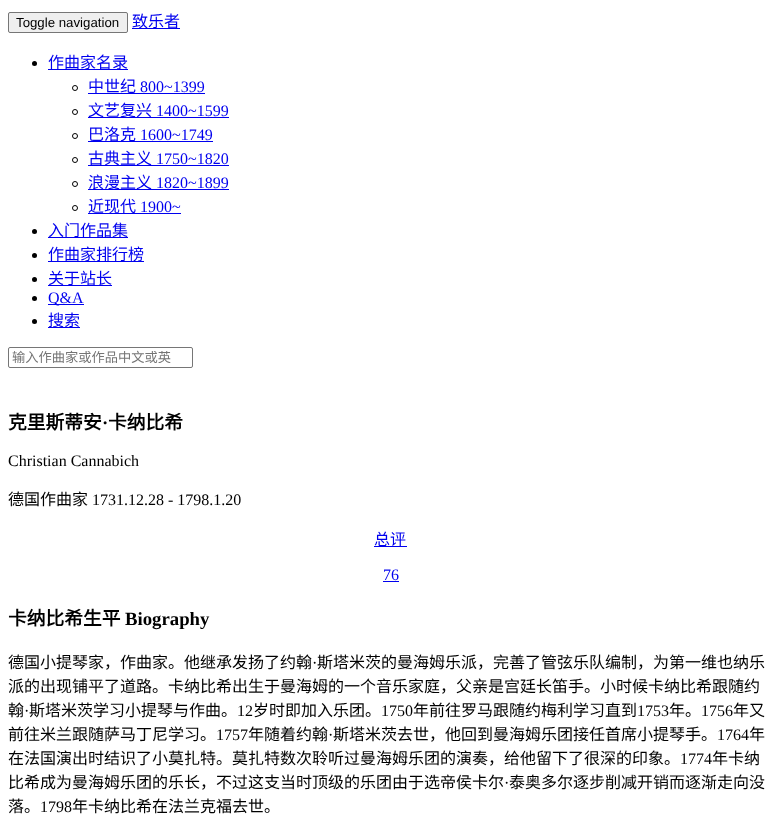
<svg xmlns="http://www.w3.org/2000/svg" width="781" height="840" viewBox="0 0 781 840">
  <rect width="100%" height="100%" fill="rgb(255,255,255)"/>
  <rect x="8.5" y="12.5" width="119" height="20" rx="1.5" fill="rgb(239,239,239)" stroke="rgb(118,118,118)"/>
  <text x="16" y="27" font-family="Liberation Sans" font-size="13.25" fill="rgb(0,0,0)">Toggle navigation</text>
  <rect x="132" y="28" width="48" height="1" fill="rgb(0,0,238)"/>
  <text x="132" y="27" font-family="Noto Sans CJK SC" font-size="16" fill="rgb(0,0,238)">致乐者</text>
  <circle cx="34.5" cy="63.5" r="2.5" fill="rgb(0,0,0)"/>
  <rect x="48" y="69" width="80" height="1" fill="rgb(0,0,238)"/>
  <text x="48" y="68" font-family="Noto Sans CJK SC" font-size="16" fill="rgb(0,0,238)">作曲家名录</text>
  <circle cx="75" cy="88" r="2.5" fill="none" stroke="rgb(0,0,0)"/>
  <rect x="88" y="93" width="117" height="1" fill="rgb(0,0,238)"/>
  <text x="88" y="92" font-family="Noto Sans CJK SC" font-size="16" fill="rgb(0,0,238)">中世纪</text>
  <text x="140" y="92" font-family="Liberation Serif" font-size="16" fill="rgb(0,0,238)">800~1399</text>
  <circle cx="75" cy="112" r="2.5" fill="none" stroke="rgb(0,0,0)"/>
  <rect x="88" y="117" width="141" height="1" fill="rgb(0,0,238)"/>
  <text x="88" y="116" font-family="Noto Sans CJK SC" font-size="16" fill="rgb(0,0,238)">文艺复兴</text>
  <text x="156" y="116" font-family="Liberation Serif" font-size="16" fill="rgb(0,0,238)">1400~1599</text>
  <circle cx="75" cy="136" r="2.5" fill="none" stroke="rgb(0,0,0)"/>
  <rect x="88" y="141" width="125" height="1" fill="rgb(0,0,238)"/>
  <text x="88" y="140" font-family="Noto Sans CJK SC" font-size="16" fill="rgb(0,0,238)">巴洛克</text>
  <text x="140" y="140" font-family="Liberation Serif" font-size="16" fill="rgb(0,0,238)">1600~1749</text>
  <circle cx="75" cy="160" r="2.5" fill="none" stroke="rgb(0,0,0)"/>
  <rect x="88" y="165" width="141" height="1" fill="rgb(0,0,238)"/>
  <text x="88" y="164" font-family="Noto Sans CJK SC" font-size="16" fill="rgb(0,0,238)">古典主义</text>
  <text x="156" y="164" font-family="Liberation Serif" font-size="16" fill="rgb(0,0,238)">1750~1820</text>
  <circle cx="75" cy="184" r="2.5" fill="none" stroke="rgb(0,0,0)"/>
  <rect x="88" y="189" width="141" height="1" fill="rgb(0,0,238)"/>
  <text x="88" y="188" font-family="Noto Sans CJK SC" font-size="16" fill="rgb(0,0,238)">浪漫主义</text>
  <text x="156" y="188" font-family="Liberation Serif" font-size="16" fill="rgb(0,0,238)">1820~1899</text>
  <circle cx="75" cy="208" r="2.5" fill="none" stroke="rgb(0,0,0)"/>
  <rect x="88" y="213" width="93" height="1" fill="rgb(0,0,238)"/>
  <text x="88" y="212" font-family="Noto Sans CJK SC" font-size="16" fill="rgb(0,0,238)">近现代</text>
  <text x="140" y="212" font-family="Liberation Serif" font-size="16" fill="rgb(0,0,238)">1900~</text>
  <circle cx="34.5" cy="231.5" r="2.5" fill="rgb(0,0,0)"/>
  <rect x="48" y="237" width="80" height="1" fill="rgb(0,0,238)"/>
  <text x="48" y="236" font-family="Noto Sans CJK SC" font-size="16" fill="rgb(0,0,238)">入门作品集</text>
  <circle cx="34.5" cy="255.5" r="2.5" fill="rgb(0,0,0)"/>
  <rect x="48" y="261" width="96" height="1" fill="rgb(0,0,238)"/>
  <text x="48" y="260" font-family="Noto Sans CJK SC" font-size="16" fill="rgb(0,0,238)">作曲家排行榜</text>
  <circle cx="34.5" cy="279.5" r="2.5" fill="rgb(0,0,0)"/>
  <rect x="48" y="285" width="64" height="1" fill="rgb(0,0,238)"/>
  <text x="48" y="284" font-family="Noto Sans CJK SC" font-size="16" fill="rgb(0,0,238)">关于站长</text>
  <circle cx="34.5" cy="298.5" r="2.5" fill="rgb(0,0,0)"/>
  <rect x="48" y="304" width="36" height="1" fill="rgb(0,0,238)"/>
  <text x="48" y="303" font-family="Liberation Serif" font-size="16" fill="rgb(0,0,238)">Q&amp;A</text>
  <circle cx="34.5" cy="321.5" r="2.5" fill="rgb(0,0,0)"/>
  <rect x="48" y="327" width="32" height="1" fill="rgb(0,0,238)"/>
  <text x="48" y="326" font-family="Noto Sans CJK SC" font-size="16" fill="rgb(0,0,238)">搜索</text>
  <rect x="8.5" y="347.5" width="184" height="20" rx="1.5" fill="none" stroke="rgb(118,118,118)"/>
  <text x="12" y="362" font-family="Noto Sans CJK SC" font-size="13.25" fill="rgb(117,117,117)">输入作曲家或作品中文或英</text>
  <text x="8" y="429" font-family="Noto Sans CJK SC" font-size="18.75" font-weight="bold" fill="rgb(0,0,0)">克里斯蒂安</text>
  <text x="102" y="429" font-family="Liberation Serif" font-size="18.75" font-weight="bold" fill="rgb(0,0,0)">·</text>
  <text x="108" y="429" font-family="Noto Sans CJK SC" font-size="18.75" font-weight="bold" fill="rgb(0,0,0)">卡纳比希</text>
  <text x="8" y="466" font-family="Liberation Serif" font-size="16" fill="rgb(0,0,0)">Christian Cannabich</text>
  <text x="8" y="505" font-family="Noto Sans CJK SC" font-size="16" fill="rgb(0,0,0)">德国作曲家</text>
  <text x="92" y="505" font-family="Liberation Serif" font-size="16" fill="rgb(0,0,0)">1731.12.28 - 1798.1.20</text>
  <rect x="374" y="546" width="33" height="1" fill="rgb(0,0,238)"/>
  <text x="374" y="545" font-family="Noto Sans CJK SC" font-size="16" fill="rgb(0,0,238)">总评</text>
  <text x="383" y="580" font-family="Liberation Serif" font-size="16" fill="rgb(0,0,238)">76</text>
  <rect x="383" y="581" width="16" height="1" fill="rgb(0,0,238)"/>
  <text x="8" y="625" font-family="Noto Sans CJK SC" font-size="18.75" font-weight="bold" fill="rgb(0,0,0)">卡纳比希生平</text>
  <text x="125" y="625" font-family="Liberation Serif" font-size="18.75" font-weight="bold" fill="rgb(0,0,0)">Biography</text>
  <text x="8" y="668" font-family="Noto Sans CJK SC" font-size="16" fill="rgb(0,0,0)">德国小提琴家，作曲家。他继承发扬了约翰</text>
  <text x="312" y="668" font-family="Liberation Serif" font-size="16" fill="rgb(0,0,0)">·</text>
  <g font-family="Noto Sans CJK SC" font-size="16" fill="rgb(0,0,0)">
    <text x="317" y="668">斯塔米茨的曼海姆乐派，完善了管弦乐队编制，为第一维也纳乐</text>
    <text>
      <tspan x="8" y="692">派的出现铺平了道路。卡纳比希出生于曼海姆的一个音乐家庭，父亲是宫廷长笛手。小时候卡纳比希跟随约</tspan>
      <tspan x="8" y="716">翰</tspan>
    </text>
  </g>
  <text x="24" y="716" font-family="Liberation Serif" font-size="16" fill="rgb(0,0,0)">·</text>
  <text x="29" y="716" font-family="Noto Sans CJK SC" font-size="16" fill="rgb(0,0,0)">斯塔米茨学习小提琴与作曲。</text>
  <text x="237" y="716" font-family="Liberation Serif" font-size="16" fill="rgb(0,0,0)">12</text>
  <text x="253" y="716" font-family="Noto Sans CJK SC" font-size="16" fill="rgb(0,0,0)">岁时即加入乐团。</text>
  <text x="381" y="716" font-family="Liberation Serif" font-size="16" fill="rgb(0,0,0)">1750</text>
  <text x="413" y="716" font-family="Noto Sans CJK SC" font-size="16" fill="rgb(0,0,0)">年前往罗马跟随约梅利学习直到</text>
  <text x="637" y="716" font-family="Liberation Serif" font-size="16" fill="rgb(0,0,0)">1753</text>
  <text x="669" y="716" font-family="Noto Sans CJK SC" font-size="16" fill="rgb(0,0,0)">年。</text>
  <text x="701" y="716" font-family="Liberation Serif" font-size="16" fill="rgb(0,0,0)">1756</text>
  <g font-family="Noto Sans CJK SC" font-size="16" fill="rgb(0,0,0)">
    <text x="733" y="716">年又</text>
    <text x="8" y="740">前往米兰跟随萨马丁尼学习。</text>
  </g>
  <text x="216" y="740" font-family="Liberation Serif" font-size="16" fill="rgb(0,0,0)">1757</text>
  <text x="248" y="740" font-family="Noto Sans CJK SC" font-size="16" fill="rgb(0,0,0)">年随着约翰</text>
  <text x="328" y="740" font-family="Liberation Serif" font-size="16" fill="rgb(0,0,0)">·</text>
  <text x="333" y="740" font-family="Noto Sans CJK SC" font-size="16" fill="rgb(0,0,0)">斯塔米茨去世，他回到曼海姆乐团接任首席小提琴手。</text>
  <text x="717" y="740" font-family="Liberation Serif" font-size="16" fill="rgb(0,0,0)">1764</text>
  <g font-family="Noto Sans CJK SC" font-size="16" fill="rgb(0,0,0)">
    <text x="749" y="740">年</text>
    <text x="8" y="764">在法国演出时结识了小莫扎特。莫扎特数次聆听过曼海姆乐团的演奏，给他留下了很深的印象。</text>
  </g>
  <text x="680" y="764" font-family="Liberation Serif" font-size="16" fill="rgb(0,0,0)">1774</text>
  <g font-family="Noto Sans CJK SC" font-size="16" fill="rgb(0,0,0)">
    <text x="712" y="764">年卡纳</text>
    <text x="8" y="788">比希成为曼海姆乐团的乐长，不过这支当时顶级的乐团由于选帝侯卡尔</text>
  </g>
  <text x="504" y="788" font-family="Liberation Serif" font-size="16" fill="rgb(0,0,0)">·</text>
  <g font-family="Noto Sans CJK SC" font-size="16" fill="rgb(0,0,0)">
    <text x="509" y="788">泰奥多尔逐步削减开销而逐渐走向没</text>
    <text x="8" y="812">落。</text>
  </g>
  <text x="40" y="812" font-family="Liberation Serif" font-size="16" fill="rgb(0,0,0)">1798</text>
  <text x="72" y="812" font-family="Noto Sans CJK SC" font-size="16" fill="rgb(0,0,0)">年卡纳比希在法兰克福去世。</text>
</svg>
